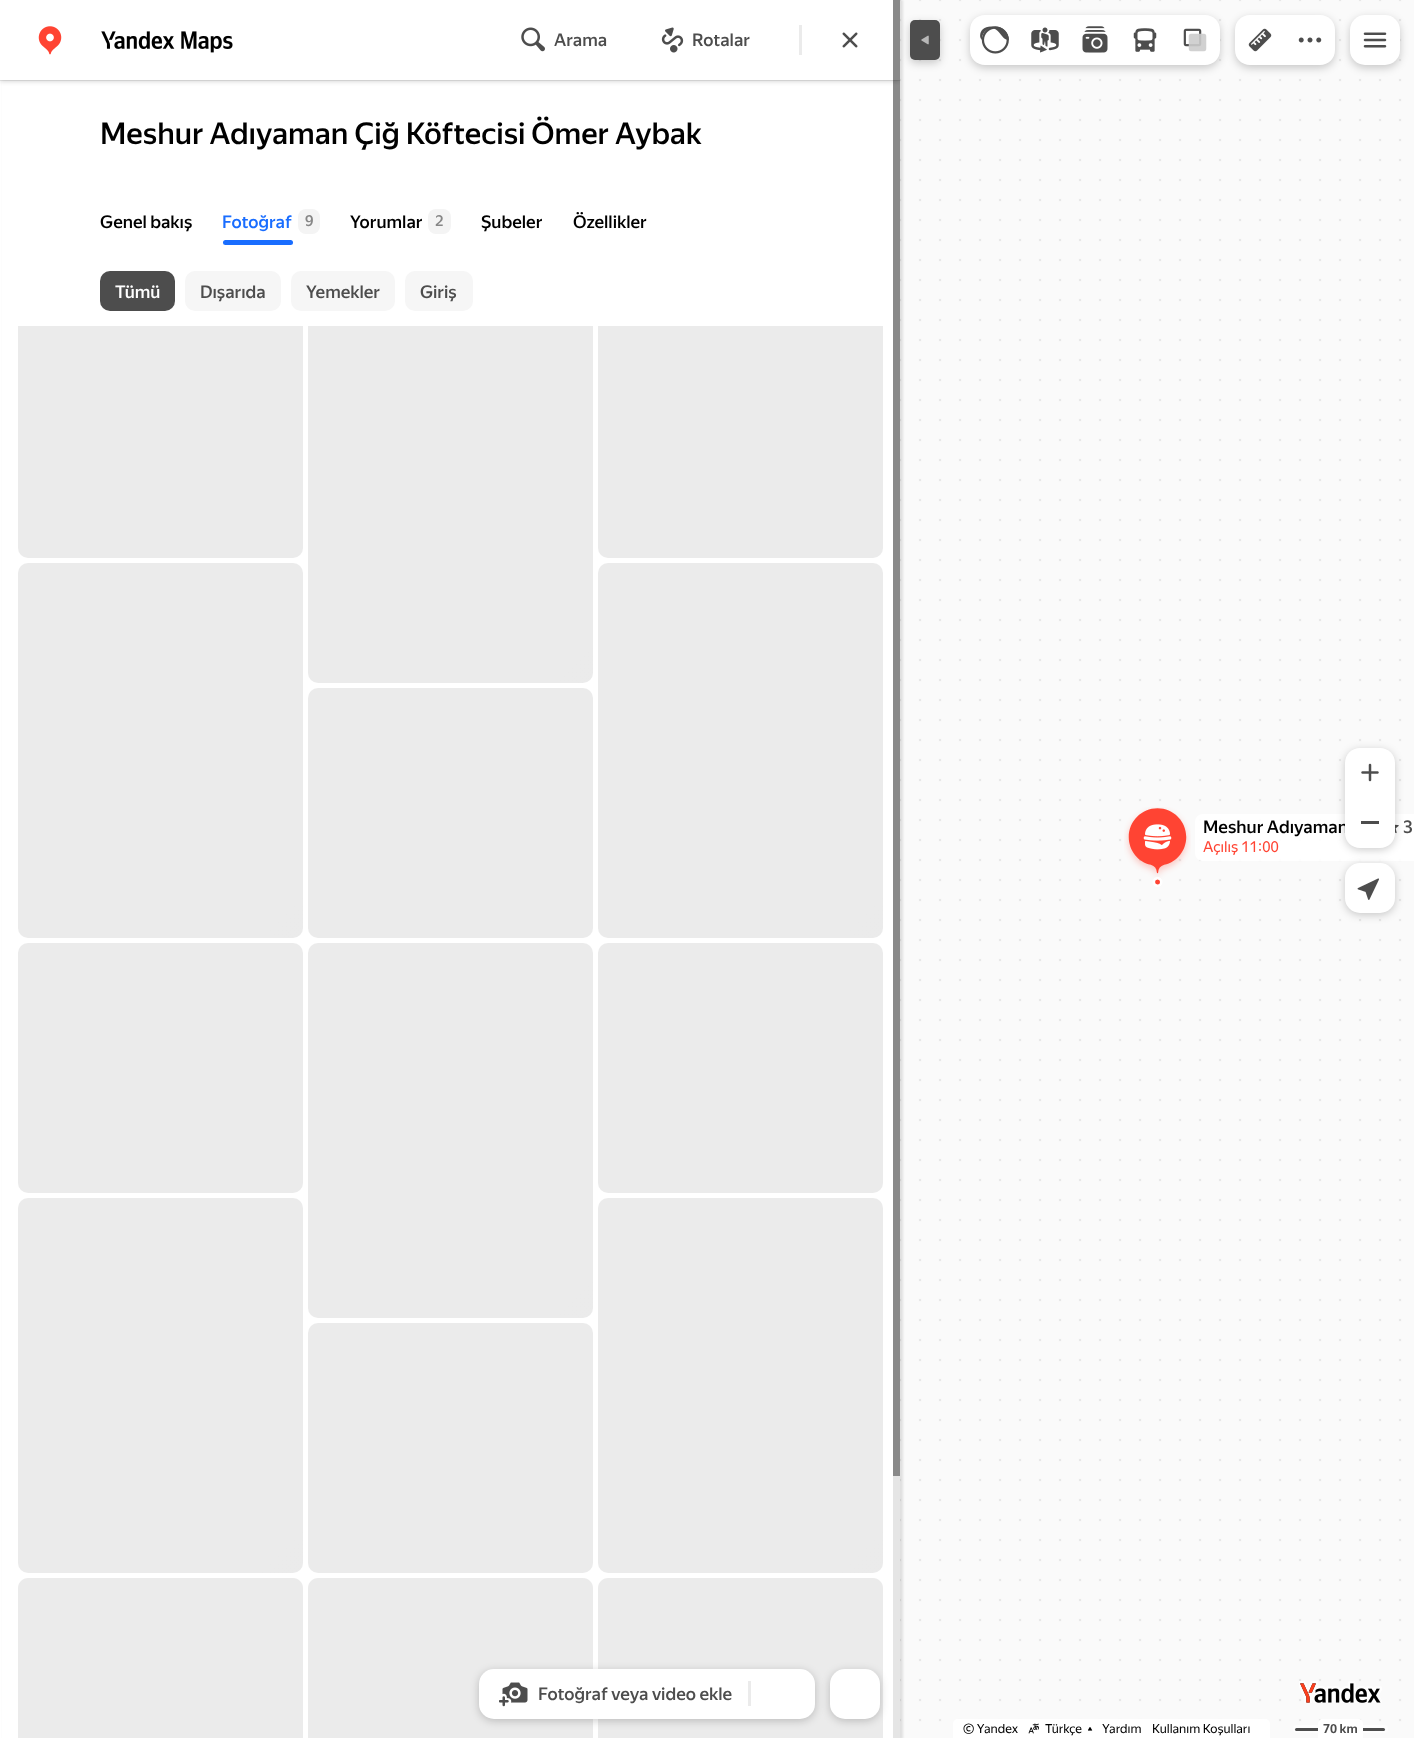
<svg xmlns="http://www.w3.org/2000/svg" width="1414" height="1738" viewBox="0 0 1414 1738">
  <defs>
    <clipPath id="clip1"><rect x="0" y="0" width="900" height="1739"/></clipPath>
    <linearGradient id="g1" gradientUnits="userSpaceOnUse" x1="-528" y1="-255" x2="848" y2="1120"><stop offset="0.6" stop-color="rgb(235,235,235)"/><stop offset="0.78" stop-color="rgb(233,233,233)"/><stop offset="0.86" stop-color="rgb(235,235,235)"/></linearGradient>
    <linearGradient id="g2" gradientUnits="userSpaceOnUse" x1="-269" y1="-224" x2="1169" y2="1214"><stop offset="0.6" stop-color="rgb(235,235,235)"/><stop offset="0.78" stop-color="rgb(233,233,233)"/><stop offset="0.86" stop-color="rgb(235,235,235)"/></linearGradient>
    <linearGradient id="g3" gradientUnits="userSpaceOnUse" x1="52" y1="-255" x2="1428" y2="1120"><stop offset="0.6" stop-color="rgb(235,235,235)"/><stop offset="0.78" stop-color="rgb(233,233,233)"/><stop offset="0.86" stop-color="rgb(235,235,235)"/></linearGradient>
    <linearGradient id="g4" gradientUnits="userSpaceOnUse" x1="-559" y1="31" x2="879" y2="1469"><stop offset="0.6" stop-color="rgb(235,235,235)"/><stop offset="0.78" stop-color="rgb(233,233,233)"/><stop offset="0.86" stop-color="rgb(235,235,235)"/></linearGradient>
    <linearGradient id="g5" gradientUnits="userSpaceOnUse" x1="-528" y1="380" x2="848" y2="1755"><stop offset="0.6" stop-color="rgb(235,235,235)"/><stop offset="0.78" stop-color="rgb(233,233,233)"/><stop offset="0.86" stop-color="rgb(235,235,235)"/></linearGradient>
    <linearGradient id="g6" gradientUnits="userSpaceOnUse" x1="-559" y1="666" x2="879" y2="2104"><stop offset="0.6" stop-color="rgb(235,235,235)"/><stop offset="0.78" stop-color="rgb(233,233,233)"/><stop offset="0.86" stop-color="rgb(235,235,235)"/></linearGradient>
    <linearGradient id="g7" gradientUnits="userSpaceOnUse" x1="-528" y1="1015" x2="848" y2="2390"><stop offset="0.6" stop-color="rgb(235,235,235)"/><stop offset="0.78" stop-color="rgb(233,233,233)"/><stop offset="0.86" stop-color="rgb(235,235,235)"/></linearGradient>
    <linearGradient id="g8" gradientUnits="userSpaceOnUse" x1="-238" y1="125" x2="1138" y2="1500"><stop offset="0.6" stop-color="rgb(235,235,235)"/><stop offset="0.78" stop-color="rgb(233,233,233)"/><stop offset="0.86" stop-color="rgb(235,235,235)"/></linearGradient>
    <linearGradient id="g9" gradientUnits="userSpaceOnUse" x1="-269" y1="411" x2="1169" y2="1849"><stop offset="0.6" stop-color="rgb(235,235,235)"/><stop offset="0.78" stop-color="rgb(233,233,233)"/><stop offset="0.86" stop-color="rgb(235,235,235)"/></linearGradient>
    <linearGradient id="g10" gradientUnits="userSpaceOnUse" x1="-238" y1="760" x2="1138" y2="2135"><stop offset="0.6" stop-color="rgb(235,235,235)"/><stop offset="0.78" stop-color="rgb(233,233,233)"/><stop offset="0.86" stop-color="rgb(235,235,235)"/></linearGradient>
    <linearGradient id="g11" gradientUnits="userSpaceOnUse" x1="-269" y1="1046" x2="1169" y2="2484"><stop offset="0.6" stop-color="rgb(235,235,235)"/><stop offset="0.78" stop-color="rgb(233,233,233)"/><stop offset="0.86" stop-color="rgb(235,235,235)"/></linearGradient>
    <linearGradient id="g12" gradientUnits="userSpaceOnUse" x1="21" y1="31" x2="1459" y2="1469"><stop offset="0.6" stop-color="rgb(235,235,235)"/><stop offset="0.78" stop-color="rgb(233,233,233)"/><stop offset="0.86" stop-color="rgb(235,235,235)"/></linearGradient>
    <linearGradient id="g13" gradientUnits="userSpaceOnUse" x1="52" y1="380" x2="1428" y2="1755"><stop offset="0.6" stop-color="rgb(235,235,235)"/><stop offset="0.78" stop-color="rgb(233,233,233)"/><stop offset="0.86" stop-color="rgb(235,235,235)"/></linearGradient>
    <linearGradient id="g14" gradientUnits="userSpaceOnUse" x1="21" y1="666" x2="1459" y2="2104"><stop offset="0.6" stop-color="rgb(235,235,235)"/><stop offset="0.78" stop-color="rgb(233,233,233)"/><stop offset="0.86" stop-color="rgb(235,235,235)"/></linearGradient>
    <linearGradient id="g15" gradientUnits="userSpaceOnUse" x1="52" y1="1015" x2="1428" y2="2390"><stop offset="0.6" stop-color="rgb(235,235,235)"/><stop offset="0.78" stop-color="rgb(233,233,233)"/><stop offset="0.86" stop-color="rgb(235,235,235)"/></linearGradient>
  </defs>
  <rect width="100%" height="100%" fill="rgb(255,255,255)"/>
  <image x="900" y="0" width="514" height="1738" href="pic1.png"/>
  <rect x="3" y="0" width="900" height="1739" fill="rgba(0,0,0,0.1)" filter="blur(1px)"/>
  <rect x="2" y="81" width="898" height="1657" fill="rgb(255,255,255)"/>
  <rect x="0" y="80" width="900" height="1" fill="rgb(235,235,235)"/>
  <g clip-path="url(#clip1)">
    <rect x="0" y="76" width="900" height="5" fill="rgba(0,0,0,0.2)" filter="blur(2.5px)"/>
  </g>
  <rect x="910" y="23" width="30" height="40" rx="5" fill="rgba(0,0,0,0.2)" filter="blur(4px)"/>
  <rect x="0" y="0" width="900" height="80" fill="rgb(255,255,255)"/>
  <image x="38" y="26" width="24" height="29" href="pic2.png"/>
  <image x="101" y="31" width="132" height="22" href="pic3.png"/>
  <image x="521" y="27" width="24" height="25" href="pic4.png"/>
  <text x="554" y="46" font-family="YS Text" font-size="17.5" font-weight="500" fill="rgb(77,77,77)">Arama</text>
  <image x="661" y="27" width="23" height="26" href="pic5.png"/>
  <text x="692" y="46" font-family="YS Text" font-size="17.5" font-weight="500" fill="rgb(77,77,77)">Rotalar</text>
  <rect x="799" y="25" width="3" height="30" fill="rgb(235,235,235)"/>
  <image x="842" y="32" width="16" height="16" href="pic6.png"/>
  <text x="100" y="144" font-family="YS Text" font-size="30" font-weight="500" fill="rgb(0,0,0)">Meshur Adıyaman Çiğ Köftecisi Ömer Aybak</text>
  <text x="100" y="228" font-family="YS Text" font-size="17.5" font-weight="500" fill="rgb(0,0,0)">Genel bakış</text>
  <text x="222" y="228" font-family="YS Text" font-size="17.5" font-weight="500" fill="rgb(25,109,255)">Fotoğraf</text>
  <rect x="298" y="209" width="22" height="25" rx="8" fill="rgb(244,244,244)"/>
  <text x="305" y="226" font-family="YS Text" font-size="15" font-weight="500" fill="rgb(135,135,135)">9</text>
  <text x="350" y="228" font-family="YS Text" font-size="17.5" font-weight="500" fill="rgb(0,0,0)">Yorumlar</text>
  <rect x="428" y="209" width="23" height="25" rx="8" fill="rgb(244,244,244)"/>
  <text x="435" y="226" font-family="YS Text" font-size="15" font-weight="500" fill="rgb(135,135,135)">2</text>
  <g font-family="YS Text" font-size="17.5" font-weight="500" fill="rgb(0,0,0)">
    <text x="481" y="228">Şubeler</text>
    <text x="573" y="228">Özellikler</text>
  </g>
  <rect x="223" y="240" width="70" height="5" rx="2.5" fill="rgb(25,109,255)"/>
  <rect x="18" y="308" width="285" height="250" rx="10" fill="url(#g1)"/>
  <rect x="308" y="308" width="285" height="375" rx="10" fill="url(#g2)"/>
  <rect x="598" y="308" width="285" height="250" rx="10" fill="url(#g3)"/>
  <rect x="18" y="308" width="865" height="18" fill="rgb(255,255,255)"/>
  <rect x="100" y="271" width="75" height="40" rx="10" fill="rgb(77,77,77)"/>
  <text x="115" y="298" font-family="YS Text" font-size="17.5" font-weight="500" fill="rgb(255,255,255)">Tümü</text>
  <rect x="185" y="271" width="96" height="40" rx="10" fill="rgb(246,246,246)"/>
  <text x="200" y="298" font-family="YS Text" font-size="17.5" font-weight="500" fill="rgb(77,77,77)">Dışarıda</text>
  <rect x="291" y="271" width="104" height="40" rx="10" fill="rgb(246,246,246)"/>
  <text x="306" y="298" font-family="YS Text" font-size="17.5" font-weight="500" fill="rgb(77,77,77)">Yemekler</text>
  <rect x="405" y="271" width="68" height="40" rx="10" fill="rgb(246,246,246)"/>
  <text x="420" y="298" font-family="YS Text" font-size="17.5" font-weight="500" fill="rgb(77,77,77)">Giriş</text>
  <rect x="18" y="563" width="285" height="375" rx="10" fill="url(#g4)"/>
  <rect x="18" y="943" width="285" height="250" rx="10" fill="url(#g5)"/>
  <rect x="18" y="1198" width="285" height="375" rx="10" fill="url(#g6)"/>
  <path d="M28 1578H293C298.5 1578 303 1582.5 303 1588V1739H18V1588C18 1582.5 22.5 1578 28 1578Z" fill="url(#g7)"/>
  <rect x="308" y="688" width="285" height="250" rx="10" fill="url(#g8)"/>
  <rect x="308" y="943" width="285" height="375" rx="10" fill="url(#g9)"/>
  <rect x="308" y="1323" width="285" height="250" rx="10" fill="url(#g10)"/>
  <path d="M318 1578H583C588.5 1578 593 1582.5 593 1588V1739H308V1588C308 1582.5 312.5 1578 318 1578Z" fill="url(#g11)"/>
  <rect x="598" y="563" width="285" height="375" rx="10" fill="url(#g12)"/>
  <rect x="598" y="943" width="285" height="250" rx="10" fill="url(#g13)"/>
  <rect x="598" y="1198" width="285" height="375" rx="10" fill="url(#g14)"/>
  <path d="M608 1578H873C878.5 1578 883 1582.5 883 1588V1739H598V1588C598 1582.5 602.5 1578 608 1578Z" fill="url(#g15)"/>
  <rect x="479" y="1671" width="336" height="50" rx="15" fill="rgba(0,0,0,0.2)" filter="blur(4px)"/>
  <rect x="479" y="1669" width="336" height="50" rx="15" fill="rgb(255,255,255)"/>
  <image x="499" y="1682" width="29" height="25" href="pic7.png"/>
  <text x="538" y="1700" font-family="YS Text" font-size="17.5" font-weight="500" fill="rgb(77,77,77)">Fotoğraf veya video ekle</text>
  <rect x="748" y="1681" width="3" height="25" fill="rgb(235,235,235)"/>
  <rect x="830" y="1671" width="50" height="50" rx="15" fill="rgba(0,0,0,0.2)" filter="blur(4px)"/>
  <rect x="830" y="1669" width="50" height="50" rx="15" fill="rgb(255,255,255)"/>
  <rect x="893" y="0" width="7" height="1738" fill="rgba(0,0,0,0.1)"/>
  <rect x="893" y="0" width="7" height="1476" fill="rgba(0,0,0,0.4)"/>
  <rect x="910" y="20" width="30" height="40" rx="5" fill="rgb(77,77,77)"/>
  <image x="921" y="35" width="8" height="10" href="pic8.png"/>
  <rect x="970" y="18" width="250" height="50" rx="15" fill="rgba(0,0,0,0.2)" filter="blur(4px)"/>
  <path d="M985 15H1020V65H985C976.5 65 970 58.5 970 50V30C970 21.5 976.5 15 985 15Z" fill="rgb(255,255,255)"/>
  <image x="980" y="26" width="29" height="28" href="pic9.png"/>
  <rect x="1020" y="15" width="150" height="50" fill="rgb(255,255,255)"/>
  <image x="1031" y="27" width="28" height="26" href="pic10.png"/>
  <path d="M1170 15H1205C1213.5 15 1220 21.5 1220 30V50C1220 58.5 1213.5 65 1205 65H1170Z" fill="rgb(255,255,255)"/>
  <image x="1183" y="28" width="24" height="24" href="pic11.png"/>
  <image x="1082" y="26" width="26" height="27" href="pic12.png"/>
  <image x="1133" y="28" width="24" height="24" href="pic13.png"/>
  <rect x="1235" y="18" width="100" height="50" rx="15" fill="rgba(0,0,0,0.2)" filter="blur(4px)"/>
  <path d="M1250 15H1285V65H1250C1241.5 65 1235 58.5 1235 50V30C1235 21.5 1241.5 15 1250 15Z" fill="rgb(255,255,255)"/>
  <image x="1248" y="28" width="24" height="24" href="pic14.png"/>
  <path d="M1285 15H1320C1328.5 15 1335 21.5 1335 30V50C1335 58.5 1328.5 65 1320 65H1285Z" fill="rgb(255,255,255)"/>
  <image x="1298" y="37" width="24" height="6" href="pic15.png"/>
  <rect x="1350" y="18" width="50" height="50" rx="15" fill="rgba(0,0,0,0.2)" filter="blur(4px)"/>
  <rect x="1350" y="15" width="50" height="50" rx="15" fill="rgb(255,255,255)"/>
  <image x="1363" y="32" width="24" height="16" href="pic16.png"/>
  <path d="M1203 814H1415V861H1203C1198.5 861 1195 857.5 1195 853V822C1195 817.5 1198.5 814 1203 814Z" fill="rgba(255,255,255,0.9)"/>
  <image x="1395" y="824" width="4" height="10" href="pic24.png"/>
  <rect x="1345" y="750" width="50" height="100" rx="15" fill="rgba(0,0,0,0.2)" filter="blur(4px)"/>
  <path d="M1360 748H1380C1388.5 748 1395 754.5 1395 763V798H1345V763C1345 754.5 1351.5 748 1360 748Z" fill="rgb(255,255,255)"/>
  <image x="1361" y="763" width="18" height="19" href="pic17.png"/>
  <text x="1203" y="833" font-family="YS Text" font-size="17.5" font-weight="500" fill="rgb(0,0,0)">Meshur Adıyaman</text>
  <path d="M1345 798H1395V833C1395 841.5 1388.5 848 1380 848H1360C1351.5 848 1345 841.5 1345 833Z" fill="rgb(255,255,255)"/>
  <rect x="1361" y="821" width="18" height="3" fill="rgb(77,77,77)"/>
  <rect x="1345" y="865" width="50" height="50" rx="15" fill="rgba(0,0,0,0.2)" filter="blur(4px)"/>
  <rect x="1345" y="863" width="50" height="50" rx="15" fill="rgb(255,255,255)"/>
  <image x="1357" y="878" width="22" height="22" href="pic18.png"/>
  <image x="1299" y="1681" width="83" height="22" href="pic19.png"/>
  <path d="M958 1719H1265C1268 1719 1270 1721 1270 1724V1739H953V1724C953 1721 955 1719 958 1719Z" fill="rgb(255,255,255)"/>
  <text x="963" y="1733" font-family="YS Text" font-size="12.5" fill="rgb(0,0,0)">© Yandex</text>
  <image x="1028" y="1723" width="11" height="11" href="pic20.png"/>
  <text x="1045" y="1733" font-family="YS Text" font-size="12.5" fill="rgb(0,0,0)">Türkçe</text>
  <image x="1088" y="1727" width="5" height="4" href="pic21.png"/>
  <g font-family="YS Text" font-size="12.5" fill="rgb(0,0,0)">
    <text x="1102" y="1733">Yardım</text>
    <text x="1152" y="1733">Kullanım Koşulları</text>
  </g>
  <rect x="1293" y="1725" width="95" height="8" rx="4" fill="rgb(253,253,253)"/>
  <rect x="1295" y="1728" width="90" height="3" rx="1.5" fill="rgb(77,77,77)"/>
  <path d="M1323 1719H1358C1361 1719 1363 1721 1363 1724V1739H1318V1724C1318 1721 1320 1719 1323 1719Z" fill="rgb(255,255,255)"/>
  <text x="1323" y="1733" font-family="YS Text" font-size="12.5" font-weight="bold" fill="rgb(77,77,77)">70 km</text>
  <image x="1124" y="807" width="67" height="80" href="pic22.png"/>
  <image x="1143" y="824" width="29" height="26" href="pic23.png"/>
  <text x="1403" y="833" font-family="YS Text" font-size="17.5" font-weight="500" fill="rgb(77,77,77)">3</text>
  <text x="1203" y="852" font-family="YS Text" font-size="15" fill="rgb(255,68,51)">Açılış 11:00</text>
</svg>
